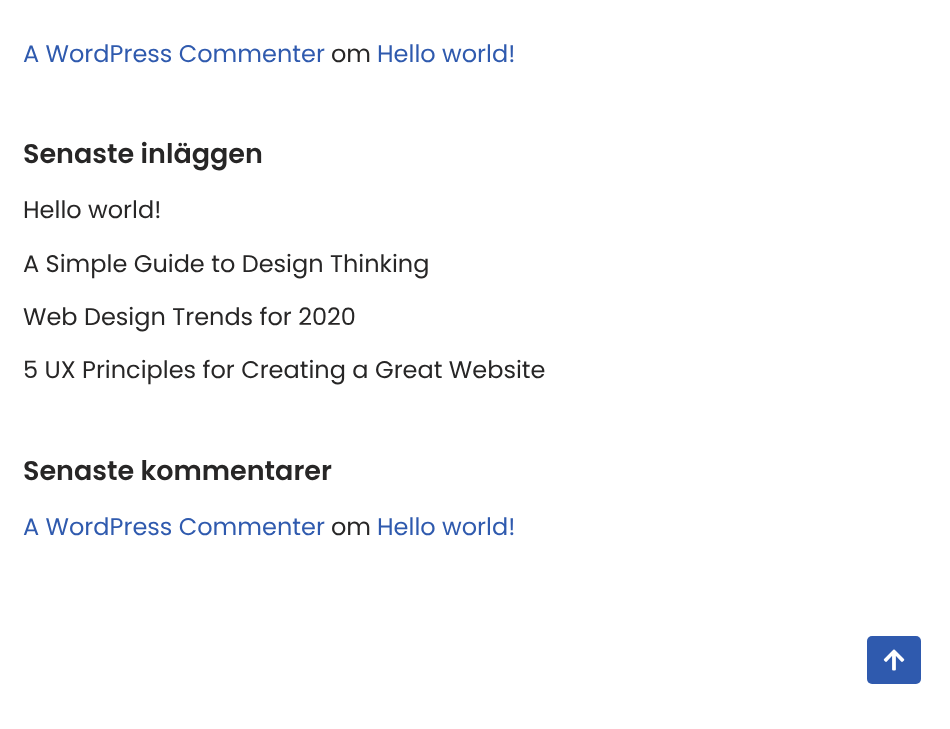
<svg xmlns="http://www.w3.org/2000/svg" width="950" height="729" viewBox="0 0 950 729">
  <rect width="100%" height="100%" fill="rgb(255,255,255)"/>
  <text x="23" y="62" font-family="Poppins" font-size="24" fill="rgb(47,90,174)">A WordPress Commenter</text>
  <text x="331" y="62" font-family="Poppins" font-size="24" fill="rgb(39,38,38)">om</text>
  <text x="377" y="62" font-family="Poppins" font-size="24" fill="rgb(47,90,174)">Hello world!</text>
  <text x="23" y="163" font-family="Poppins" font-size="27" font-weight="600" fill="rgb(39,38,38)">Senaste inläggen</text>
  <g font-family="Poppins" font-size="24" fill="rgb(39,38,38)">
    <text x="23" y="218">Hello world!</text>
    <text x="23" y="272">A Simple Guide to Design Thinking</text>
    <text x="23" y="325">Web Design Trends for 2020</text>
    <text x="23" y="378">5 UX Principles for Creating a Great Website</text>
  </g>
  <text x="23" y="480" font-family="Poppins" font-size="27" font-weight="600" fill="rgb(39,38,38)">Senaste kommentarer</text>
  <text x="23" y="535" font-family="Poppins" font-size="24" fill="rgb(47,90,174)">A WordPress Commenter</text>
  <text x="331" y="535" font-family="Poppins" font-size="24" fill="rgb(39,38,38)">om</text>
  <text x="377" y="535" font-family="Poppins" font-size="24" fill="rgb(47,90,174)">Hello world!</text>
  <rect x="867" y="636" width="54" height="48" rx="5" fill="rgb(47,90,174)"/>
  <image x="883" y="649" width="22" height="22" href="pic1.png"/>
</svg>
